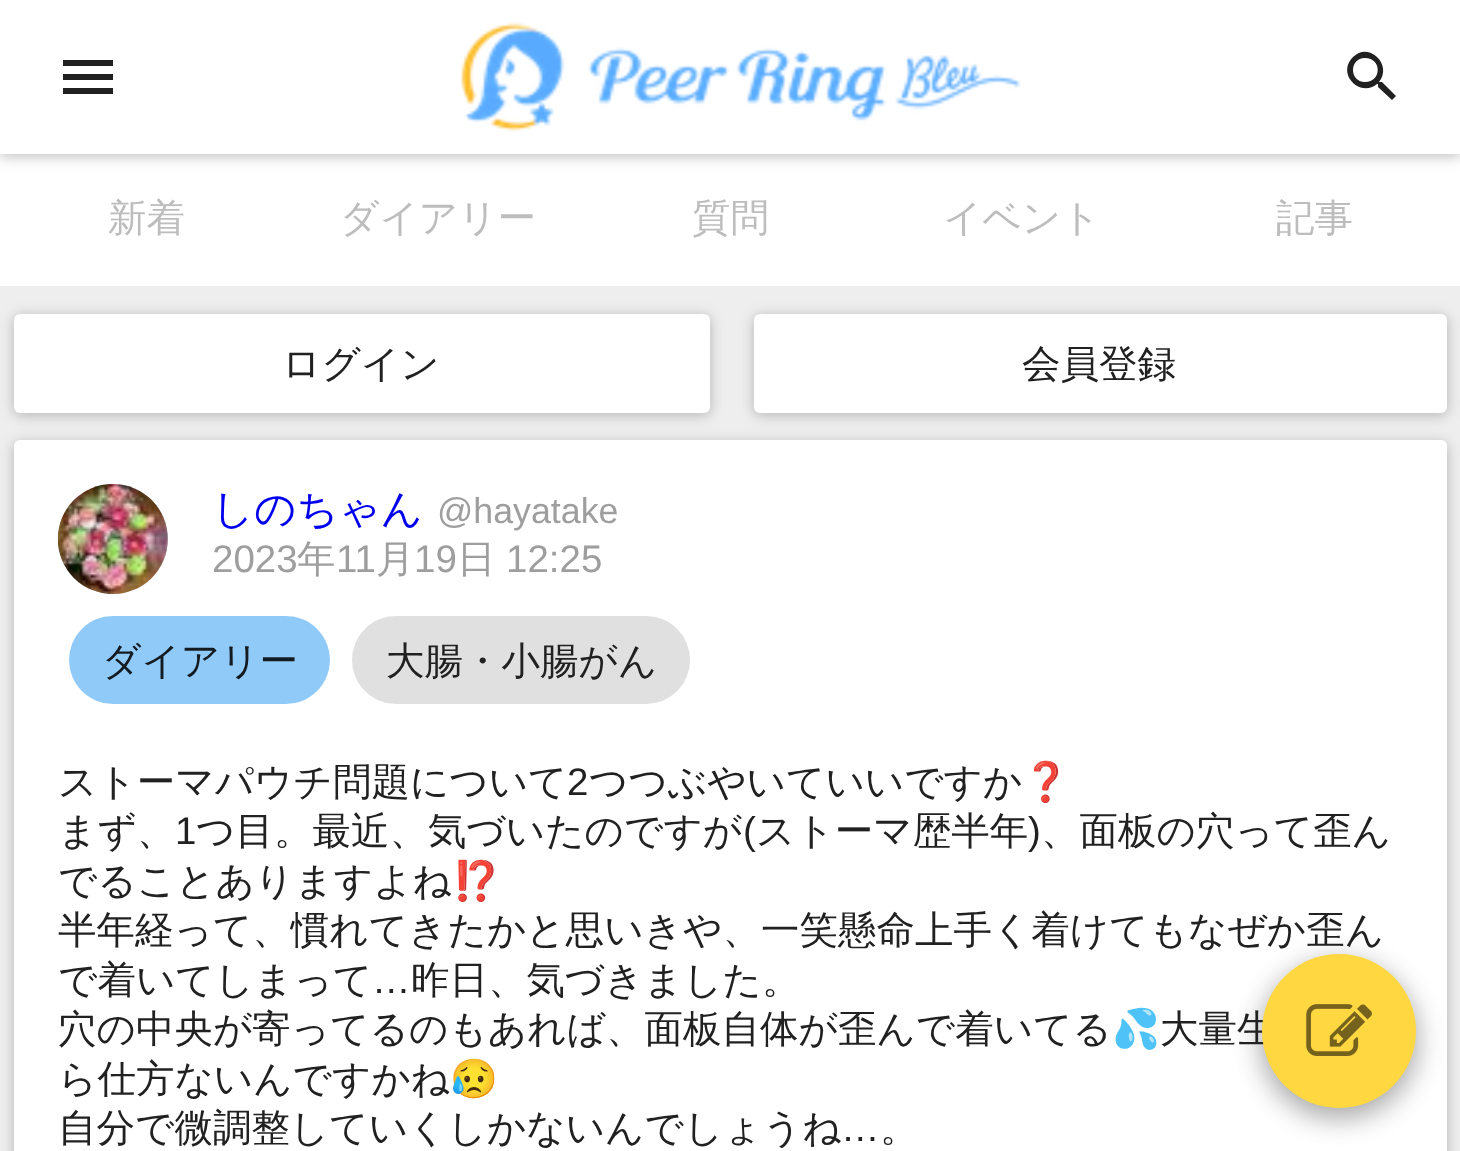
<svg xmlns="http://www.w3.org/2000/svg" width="1460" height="1151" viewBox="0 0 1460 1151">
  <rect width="100%" height="100%" fill="rgb(238,238,238)"/>
  <rect x="0" y="154" width="1460" height="132" fill="rgb(255,255,255)"/>
  <rect x="0" y="3" width="1460" height="154" fill="rgba(0,0,0,0.12)" filter="blur(5.5px)"/>
  <rect x="0" y="3" width="1460" height="154" fill="rgba(0,0,0,0.12)" filter="blur(8px)"/>
  <rect x="0" y="0" width="1460" height="154" fill="rgb(255,255,255)"/>
  <path d="M63 94H113V88H63ZM63 80H113V74H63ZM63 60V66H113V60Z" fill="rgb(33,33,33)"/>
  <image x="460" y="22" width="561" height="110" href="pic1.png"/>
  <path d="M1382 82H1380H1379C1393 65 1369 41 1353 57C1336 74 1360 98 1377 84H1378V87L1392 100L1396 96ZM1365 82C1349 82 1349 58 1365 58C1382 58 1382 82 1365 82Z" fill="rgb(33,33,33)"/>
  <rect x="14" y="443" width="1433" height="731" rx="6" fill="rgba(0,0,0,0.12)" filter="blur(5.5px)"/>
  <rect x="14" y="443" width="1433" height="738" rx="6" fill="rgba(0,0,0,0.12)" filter="blur(8px)"/>
  <rect x="14" y="440" width="1433" height="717" rx="6" fill="rgb(255,255,255)"/>
  <rect x="1262" y="963" width="154" height="154" rx="77" fill="rgba(0,0,0,0.23)" filter="blur(14px)"/>
  <rect x="1262" y="963" width="154" height="154" rx="77" fill="rgba(0,0,0,0.16)" filter="blur(14px)"/>
  <text x="1160" y="1042" font-family="WenQuanYi Zen Hei" font-size="38.5" font-weight="500" fill="rgb(33,33,33)">大量生</text>
  <circle cx="1339" cy="1031" r="77" fill="rgb(255,215,64)"/>
  <image x="1306" y="1004" width="66" height="52" href="pic2.png"/>
  <g font-family="WenQuanYi Zen Hei" font-size="38.5" font-weight="500" fill="rgb(189,189,189)">
    <text x="108" y="231">新着</text>
    <text x="340" y="231">ダイアリー</text>
    <text x="692" y="231">質問</text>
    <text x="943" y="231">イベント</text>
    <text x="1276" y="231">記事</text>
  </g>
  <rect x="14" y="316" width="696" height="99" rx="6" fill="rgba(0,0,0,0.12)" filter="blur(5.5px)"/>
  <rect x="14" y="316" width="696" height="99" rx="6" fill="rgba(0,0,0,0.12)" filter="blur(8px)"/>
  <rect x="14" y="314" width="696" height="99" rx="6" fill="rgb(255,255,255)"/>
  <text x="282" y="377" font-family="WenQuanYi Zen Hei" font-size="38.5" font-weight="500" fill="rgb(33,33,33)">ログイン</text>
  <rect x="754" y="316" width="693" height="99" rx="6" fill="rgba(0,0,0,0.12)" filter="blur(5.5px)"/>
  <rect x="754" y="316" width="693" height="99" rx="6" fill="rgba(0,0,0,0.12)" filter="blur(8px)"/>
  <rect x="754" y="314" width="693" height="99" rx="6" fill="rgb(255,255,255)"/>
  <text x="1022" y="377" font-family="WenQuanYi Zen Hei" font-size="38.5" font-weight="500" fill="rgb(33,33,33)">会員登録</text>
  <circle cx="113" cy="539" r="55" fill="rgb(188,188,188)"/>
  <image x="57" y="484" width="111" height="110" href="pic3.png"/>
  <text x="212" y="523" font-family="WenQuanYi Zen Hei" font-size="41.25" font-weight="500" fill="rgb(0,0,238)">しのちゃん</text>
  <text x="437" y="523" font-family="Liberation Sans" font-size="35.75" fill="rgb(158,158,158)">@hayatake</text>
  <text x="212" y="572" font-family="Liberation Sans" font-size="38.5" fill="rgb(158,158,158)">2023</text>
  <text x="297" y="572" font-family="WenQuanYi Zen Hei" font-size="38.5" font-weight="500" fill="rgb(158,158,158)">年</text>
  <text x="336" y="572" font-family="Liberation Sans" font-size="38.5" fill="rgb(158,158,158)">11</text>
  <text x="376" y="572" font-family="WenQuanYi Zen Hei" font-size="38.5" font-weight="500" fill="rgb(158,158,158)">月</text>
  <text x="414" y="572" font-family="Liberation Sans" font-size="38.5" fill="rgb(158,158,158)">19</text>
  <text x="457" y="572" font-family="WenQuanYi Zen Hei" font-size="38.5" font-weight="500" fill="rgb(158,158,158)">日</text>
  <text x="506" y="572" font-family="Liberation Sans" font-size="38.5" fill="rgb(158,158,158)">12:25</text>
  <rect x="69" y="616" width="261" height="88" rx="44" fill="rgb(144,202,249)"/>
  <text x="102" y="674" font-family="WenQuanYi Zen Hei" font-size="38.5" font-weight="500" fill="rgb(19,26,32)">ダイアリー</text>
  <rect x="352" y="616" width="338" height="88" rx="44" fill="rgb(224,224,224)"/>
  <g font-family="WenQuanYi Zen Hei" font-size="38.5" font-weight="500" fill="rgb(33,33,33)">
    <text x="386" y="674">大腸・小腸がん</text>
    <text x="58" y="795">ストーマパウチ問題について</text>
  </g>
  <text x="567" y="795" font-family="Liberation Sans" font-size="38.5" fill="rgb(33,33,33)">2</text>
  <text x="589" y="795" font-family="WenQuanYi Zen Hei" font-size="38.5" font-weight="500" fill="rgb(33,33,33)">つつぶやいていいですか</text>
  <text x="1022" y="795" font-family="Noto Color Emoji" font-size="38.5" fill="rgb(33,33,33)">❓</text>
  <text x="58" y="844" font-family="WenQuanYi Zen Hei" font-size="38.5" font-weight="500" fill="rgb(33,33,33)">まず、</text>
  <text x="175" y="844" font-family="Liberation Sans" font-size="38.5" fill="rgb(33,33,33)">1</text>
  <text x="196" y="844" font-family="WenQuanYi Zen Hei" font-size="38.5" font-weight="500" fill="rgb(33,33,33)">つ目。最近、気づいたのですが</text>
  <text x="743" y="844" font-family="Liberation Sans" font-size="38.5" fill="rgb(33,33,33)">(</text>
  <text x="756" y="844" font-family="WenQuanYi Zen Hei" font-size="38.5" font-weight="500" fill="rgb(33,33,33)">ストーマ歴半年</text>
  <text x="1028" y="844" font-family="Liberation Sans" font-size="38.5" fill="rgb(33,33,33)">)</text>
  <g font-family="WenQuanYi Zen Hei" font-size="38.5" font-weight="500" fill="rgb(33,33,33)">
    <text x="1041" y="844">、面板の穴って歪ん</text>
    <text x="58" y="894">でることありますよね</text>
  </g>
  <text x="452" y="894" font-family="Noto Color Emoji" font-size="38.5" fill="rgb(33,33,33)">⁉️</text>
  <g font-family="WenQuanYi Zen Hei" font-size="38.5" font-weight="500" fill="rgb(33,33,33)">
    <text>
      <tspan x="58" y="943">半年経って、慣れてきたかと思いきや、一笑懸命上手く着けてもなぜか歪ん</tspan>
      <tspan x="58" y="993">で着いてしまって</tspan>
    </text>
  </g>
  <text x="372" y="993" font-family="Liberation Sans" font-size="38.5" fill="rgb(33,33,33)">…</text>
  <g font-family="WenQuanYi Zen Hei" font-size="38.5" font-weight="500" fill="rgb(33,33,33)">
    <text x="411" y="993">昨日、気づきました。</text>
    <text x="58" y="1042">穴の中央が寄ってるのもあれば、面板自体が歪んで着いてる</text>
  </g>
  <text x="1112" y="1042" font-family="Noto Color Emoji" font-size="38.5" fill="rgb(33,33,33)">💦</text>
  <text x="58" y="1092" font-family="WenQuanYi Zen Hei" font-size="38.5" font-weight="500" fill="rgb(33,33,33)">ら仕方ないんですかね</text>
  <text x="450" y="1092" font-family="Noto Color Emoji" font-size="38.5" fill="rgb(33,33,33)">😥</text>
  <text x="58" y="1141" font-family="WenQuanYi Zen Hei" font-size="38.5" font-weight="500" fill="rgb(33,33,33)">自分で微調整していくしかないんでしょうね</text>
  <text x="841" y="1141" font-family="Liberation Sans" font-size="38.5" fill="rgb(33,33,33)">…</text>
  <text x="880" y="1141" font-family="WenQuanYi Zen Hei" font-size="38.5" font-weight="500" fill="rgb(33,33,33)">。</text>
</svg>
